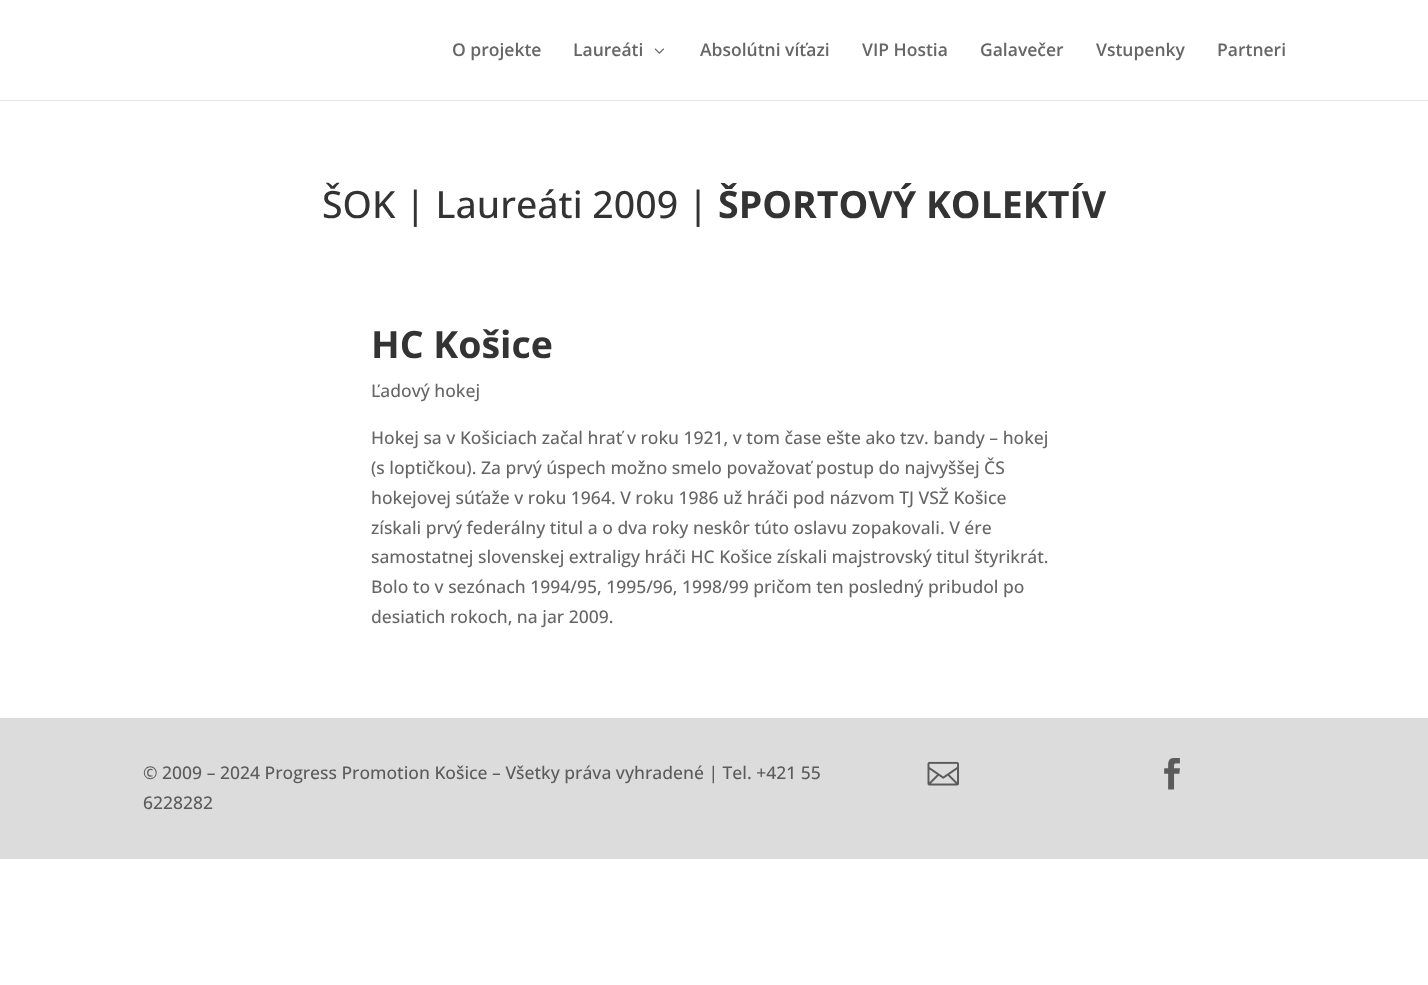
<svg xmlns="http://www.w3.org/2000/svg" width="1428" height="985" viewBox="0 0 1428 985">
  <rect width="100%" height="100%" fill="rgb(255,255,255)"/>
  <path d="M0 100V101H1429V1V100Z" fill="rgb(230,230,230)"/>
  <g font-family="Open Sans" font-size="17.5" font-weight="600" fill="rgb(102,102,102)">
    <text x="452" y="56">O projekte</text>
    <text x="573" y="56">Laureáti</text>
  </g>
  <image x="654" y="48" width="10" height="6" href="pic1.png"/>
  <g font-family="Open Sans" font-size="17.5" font-weight="600" fill="rgb(102,102,102)">
    <text x="700" y="56">Absolútni víťazi</text>
    <text x="862" y="56">VIP Hostia</text>
    <text x="980" y="56">Galavečer</text>
    <text x="1096" y="56">Vstupenky</text>
    <text x="1217" y="56">Partneri</text>
  </g>
  <text x="322" y="218" font-family="Open Sans" font-size="37.5" font-weight="500" fill="rgb(51,51,51)">ŠOK | Laureáti 2009 |</text>
  <g font-family="Open Sans" font-size="37.5" font-weight="bold" fill="rgb(51,51,51)">
    <text x="718" y="218">ŠPORTOVÝ KOLEKTÍV</text>
    <text x="371" y="358">HC Košice</text>
  </g>
  <g font-family="Open Sans" font-size="17.5" font-weight="500" fill="rgb(102,102,102)">
    <text x="371" y="397">Ľadový hokej</text>
    <text>
      <tspan x="371" y="444">Hokej sa v Košiciach začal hrať v roku 1921, v tom čase ešte ako tzv. bandy – hokej</tspan>
      <tspan x="371" y="474">(s loptičkou). Za prvý úspech možno smelo považovať postup do najvyššej ČS</tspan>
      <tspan x="371" y="504">hokejovej súťaže v roku 1964. V roku 1986 už hráči pod názvom TJ VSŽ Košice</tspan>
      <tspan x="371" y="534">získali prvý federálny titul a o dva roky neskôr túto oslavu zopakovali. V ére</tspan>
      <tspan x="371" y="563">samostatnej slovenskej extraligy hráči HC Košice získali majstrovský titul štyrikrát.</tspan>
      <tspan x="371" y="593">Bolo to v sezónach 1994/95, 1995/96, 1998/99 pričom ten posledný pribudol po</tspan>
      <tspan x="371" y="623">desiatich rokoch, na jar 2009.</tspan>
    </text>
  </g>
  <rect x="0" y="718" width="1428" height="141" fill="rgb(220,220,220)"/>
  <g font-family="Open Sans" font-size="17.5" font-weight="500" fill="rgb(91,91,91)">
    <text>
      <tspan x="143" y="779">© 2009 – 2024 Progress Promotion Košice – Všetky práva vyhradené | Tel. +421 55</tspan>
      <tspan x="143" y="809">6228282</tspan>
    </text>
  </g>
  <image x="927" y="761" width="32" height="25" href="pic2.png"/>
  <image x="1164" y="758" width="16" height="32" href="pic3.png"/>
</svg>
